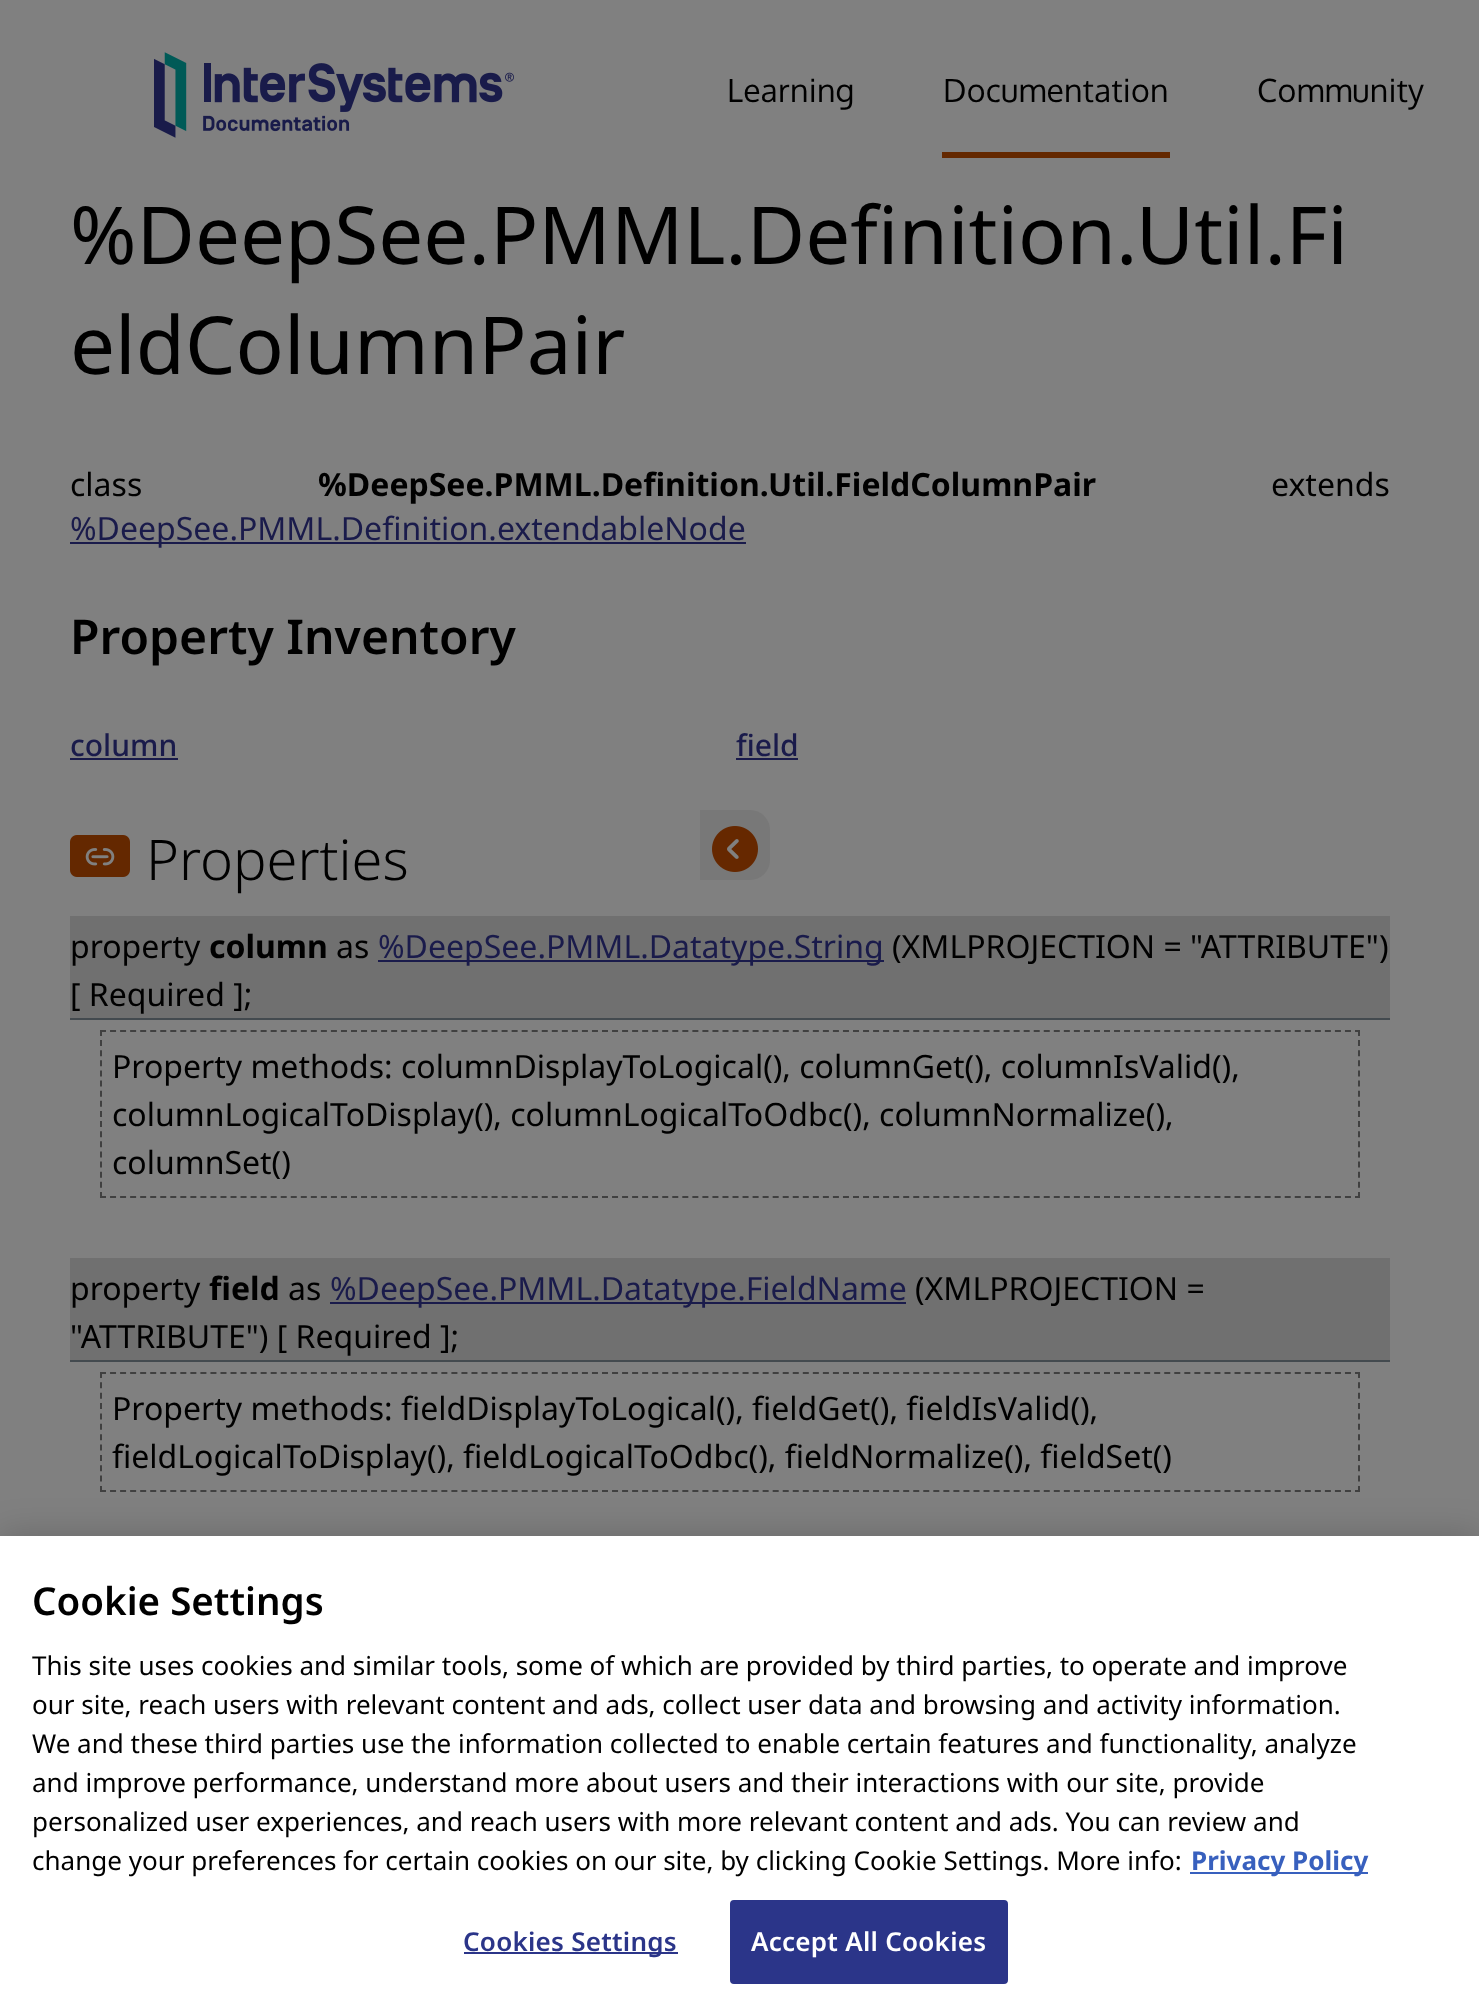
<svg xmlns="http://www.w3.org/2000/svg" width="1479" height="2016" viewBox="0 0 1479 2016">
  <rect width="100%" height="100%" fill="rgb(128,128,128)"/>
  <image x="154" y="52" width="360" height="86" href="pic1.png"/>
  <text x="727" y="102" font-family="Oxygen" font-size="32" letter-spacing="0.25" fill="rgb(0,0,0)">Learning</text>
  <rect x="942" y="152" width="228" height="6" fill="rgb(100,40,0)"/>
  <g font-family="Oxygen" font-size="32" letter-spacing="0.25" fill="rgb(0,0,0)">
    <text x="943" y="102">Documentation</text>
    <text x="1257" y="102">Community</text>
  </g>
  <g font-family="Noto Sans" font-size="80" fill="rgb(0,0,0)">
    <text>
      <tspan x="70" y="264">%DeepSee.PMML.Definition.Util.Fi</tspan>
      <tspan x="70" y="374">eldColumnPair</tspan>
    </text>
  </g>
  <text x="70" y="496" font-family="Noto Sans" font-size="32" fill="rgb(0,0,0)">class</text>
  <text x="318" y="496" font-family="Noto Sans" font-size="32" font-weight="bold" fill="rgb(0,0,0)">%DeepSee.PMML.Definition.Util.FieldColumnPair</text>
  <text x="1271" y="496" font-family="Noto Sans" font-size="32" fill="rgb(0,0,0)">extends</text>
  <rect x="70" y="542" width="676" height="2" fill="rgb(26,27,75)"/>
  <text x="70" y="540" font-family="Noto Sans" font-size="32" fill="rgb(26,27,75)">%DeepSee.PMML.Definition.extendableNode</text>
  <text x="70" y="654" font-family="Noto Sans" font-size="48" font-weight="600" fill="rgb(0,0,0)">Property Inventory</text>
  <text x="70" y="756" font-family="Noto Sans" font-size="30" font-weight="500" fill="rgb(26,27,75)">column</text>
  <rect x="70" y="758" width="108" height="2" fill="rgb(26,27,75)"/>
  <text x="736" y="756" font-family="Noto Sans" font-size="30" font-weight="500" fill="rgb(26,27,75)">field</text>
  <rect x="736" y="758" width="62" height="2" fill="rgb(26,27,75)"/>
  <image x="70" y="835" width="60" height="42" href="pic2.png"/>
  <text x="146" y="880" font-family="Noto Sans" font-size="56" font-weight="300" fill="rgb(0,0,0)">Properties</text>
  <rect x="70" y="916" width="1320" height="102" fill="rgb(112,112,112)"/>
  <rect x="70" y="1018" width="1320" height="2" fill="rgb(67,74,79)"/>
  <text x="70" y="958" font-family="Noto Sans" font-size="32" fill="rgb(0,0,0)">property</text>
  <text x="209" y="958" font-family="Noto Sans" font-size="32" font-weight="bold" fill="rgb(0,0,0)">column</text>
  <text x="336" y="958" font-family="Noto Sans" font-size="32" fill="rgb(0,0,0)">as</text>
  <rect x="378" y="960" width="506" height="2" fill="rgb(26,27,75)"/>
  <text x="378" y="958" font-family="Noto Sans" font-size="32" fill="rgb(26,27,75)">%DeepSee.PMML.Datatype.String</text>
  <g font-family="Noto Sans" font-size="32" fill="rgb(0,0,0)">
    <text x="892" y="958">(XMLPROJECTION = "ATTRIBUTE")</text>
    <text x="70" y="1006">[ Required ];</text>
  </g>
  <path d="M100 1031H1360" fill="none" stroke="rgb(64,64,64)" stroke-width="2" stroke-dasharray="6 4.04"/>
  <path d="M1359 1030V1198" fill="none" stroke="rgb(64,64,64)" stroke-width="2" stroke-dasharray="6 4.12"/>
  <path d="M100 1197H1360" fill="none" stroke="rgb(64,64,64)" stroke-width="2" stroke-dasharray="6 4.04"/>
  <path d="M101 1030V1198" fill="none" stroke="rgb(64,64,64)" stroke-width="2" stroke-dasharray="6 4.12"/>
  <g font-family="Noto Sans" font-size="32" fill="rgb(0,0,0)">
    <text>
      <tspan x="112" y="1078">Property methods: columnDisplayToLogical(), columnGet(), columnIsValid(),</tspan>
      <tspan x="112" y="1126">columnLogicalToDisplay(), columnLogicalToOdbc(), columnNormalize(),</tspan>
      <tspan x="112" y="1174">columnSet()</tspan>
    </text>
  </g>
  <rect x="70" y="1258" width="1320" height="102" fill="rgb(112,112,112)"/>
  <rect x="70" y="1360" width="1320" height="2" fill="rgb(67,74,79)"/>
  <text x="70" y="1300" font-family="Noto Sans" font-size="32" fill="rgb(0,0,0)">property</text>
  <text x="209" y="1300" font-family="Noto Sans" font-size="32" font-weight="bold" fill="rgb(0,0,0)">field</text>
  <text x="288" y="1300" font-family="Noto Sans" font-size="32" fill="rgb(0,0,0)">as</text>
  <rect x="330" y="1302" width="576" height="2" fill="rgb(26,27,75)"/>
  <text x="330" y="1300" font-family="Noto Sans" font-size="32" fill="rgb(26,27,75)">%DeepSee.PMML.Datatype.FieldName</text>
  <g font-family="Noto Sans" font-size="32" fill="rgb(0,0,0)">
    <text x="915" y="1300">(XMLPROJECTION =</text>
    <text x="70" y="1348">"ATTRIBUTE") [ Required ];</text>
  </g>
  <path d="M100 1373H1360" fill="none" stroke="rgb(64,64,64)" stroke-width="2" stroke-dasharray="6 4.04"/>
  <path d="M1359 1372V1492" fill="none" stroke="rgb(64,64,64)" stroke-width="2" stroke-dasharray="6 4.36"/>
  <path d="M100 1491H1360" fill="none" stroke="rgb(64,64,64)" stroke-width="2" stroke-dasharray="6 4.04"/>
  <path d="M101 1372V1492" fill="none" stroke="rgb(64,64,64)" stroke-width="2" stroke-dasharray="6 4.36"/>
  <g font-family="Noto Sans" font-size="32" fill="rgb(0,0,0)">
    <text>
      <tspan x="112" y="1420">Property methods: fieldDisplayToLogical(), fieldGet(), fieldIsValid(),</tspan>
      <tspan x="112" y="1468">fieldLogicalToDisplay(), fieldLogicalToOdbc(), fieldNormalize(), fieldSet()</tspan>
    </text>
  </g>
  <path d="M700 810H750C761 810 770 819 770 830V860C770 871 761 880 750 880H700Z" fill="rgb(120,120,120)"/>
  <image x="712" y="826" width="46" height="46" href="pic3.png"/>
  <rect x="0" y="1536" width="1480" height="480" fill="rgba(0,0,0,0.2)" filter="blur(18px)"/>
  <rect x="0" y="1536" width="1479" height="480" fill="rgb(255,255,255)"/>
  <text x="32" y="1615" font-family="Noto Sans" font-size="38.5" font-weight="600" fill="rgb(0,0,0)">Cookie Settings</text>
  <g font-family="Noto Sans" font-size="26.02" fill="rgb(0,0,0)">
    <text>
      <tspan x="32" y="1675">This site uses cookies and similar tools, some of which are provided by third parties, to operate and improve</tspan>
      <tspan x="32" y="1714">our site, reach users with relevant content and ads, collect user data and browsing and activity information.</tspan>
      <tspan x="32" y="1753">We and these third parties use the information collected to enable certain features and functionality, analyze</tspan>
      <tspan x="32" y="1792">and improve performance, understand more about users and their interactions with our site, provide</tspan>
      <tspan x="32" y="1831">personalized user experiences, and reach users with more relevant content and ads. You can review and</tspan>
      <tspan x="32" y="1870">change your preferences for certain cookies on our site, by clicking Cookie Settings. More info:</tspan>
    </text>
  </g>
  <rect x="1190" y="1872" width="178" height="2" fill="rgb(56,96,190)"/>
  <text x="1191" y="1870" font-family="Noto Sans" font-size="26.02" font-weight="bold" fill="rgb(56,96,190)">Privacy Policy</text>
  <rect x="464" y="1952" width="214" height="2" fill="rgb(43,53,137)"/>
  <text x="463" y="1951" font-family="Noto Sans" font-size="26.02" font-weight="600" letter-spacing="0.25" fill="rgb(43,53,137)">Cookies Settings</text>
  <rect x="731" y="1901" width="276" height="82" rx="3" fill="rgb(43,53,137)" stroke="rgb(43,53,137)" stroke-width="2"/>
  <text x="751" y="1951" font-family="Noto Sans" font-size="26.02" font-weight="600" letter-spacing="0.25" fill="rgb(255,255,255)">Accept All Cookies</text>
</svg>
